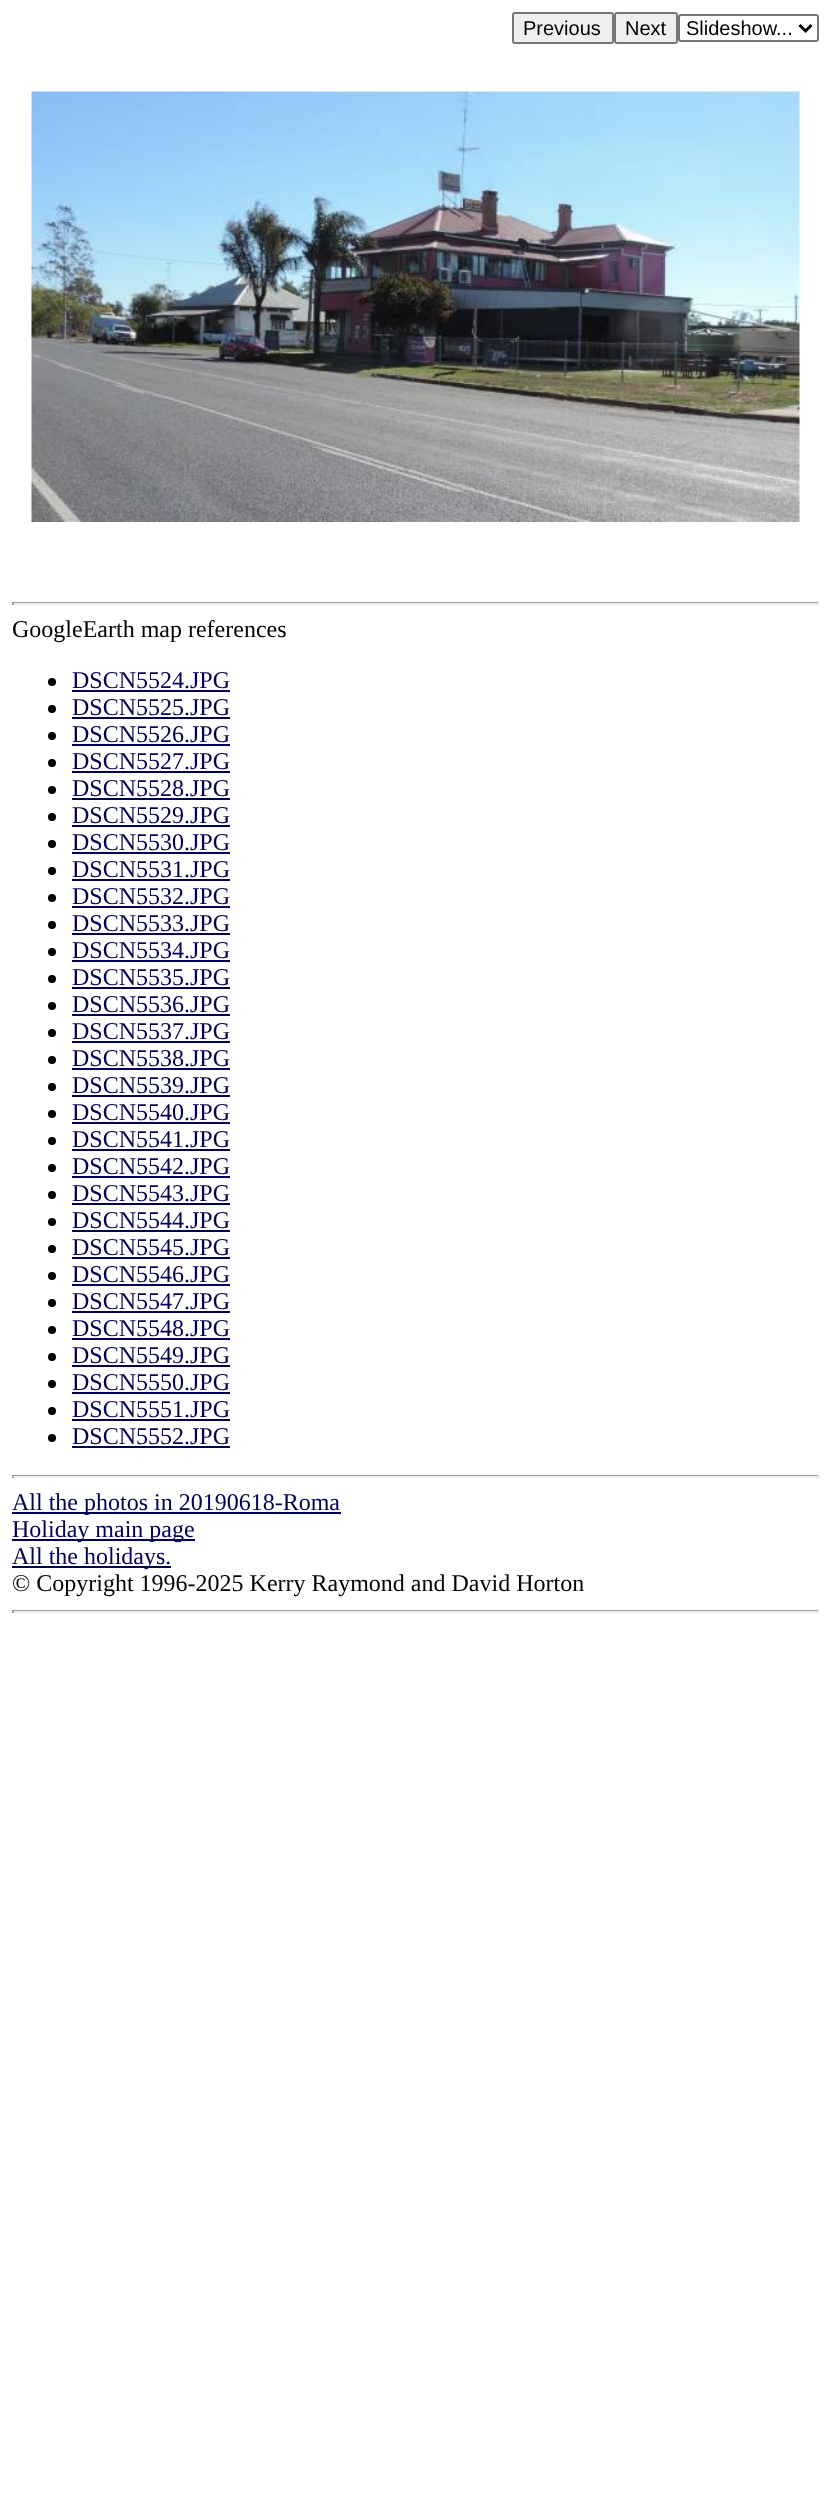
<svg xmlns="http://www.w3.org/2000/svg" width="830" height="2510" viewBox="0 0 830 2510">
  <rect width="100%" height="100%" fill="rgb(255,255,255)"/>
  <rect x="513" y="13" width="100" height="30" rx="2" fill="rgb(239,239,239)" stroke="rgb(118,118,118)" stroke-width="2"/>
  <text x="523" y="35" font-family="Liberation Sans" font-size="20" fill="rgb(0,0,0)">Previous</text>
  <rect x="615" y="13" width="62" height="30" rx="2" fill="rgb(239,239,239)" stroke="rgb(118,118,118)" stroke-width="2"/>
  <text x="625" y="35" font-family="Liberation Sans" font-size="20" fill="rgb(0,0,0)">Next</text>
  <rect x="679" y="15" width="139" height="26" rx="2" fill="none" stroke="rgb(118,118,118)" stroke-width="2"/>
  <path d="M799.5 25L805.5 31L811.5 25" fill="none" stroke="rgb(0,0,0)" stroke-width="3"/>
  <text x="686" y="35" font-family="Liberation Sans" font-size="20" fill="rgb(0,0,0)">Slideshow...</text>
  <image x="31" y="91" width="769" height="431" href="pic1.png"/>
  <rect x="12" y="602" width="807" height="1" fill="rgb(159,159,159)"/>
  <rect x="818" y="602" width="2" height="3" fill="rgb(238,238,238)"/>
  <rect x="12" y="603" width="807" height="2" fill="rgb(238,238,238)"/>
  <rect x="12" y="602" width="2" height="3" fill="rgb(159,159,159)"/>
  <text x="12" y="637" font-family="Liberation Serif" font-size="24" fill="rgb(0,0,0)">GoogleEarth map references</text>
  <circle cx="52" cy="682" r="4" fill="rgb(0,0,0)"/>
  <text x="72" y="688" font-family="Liberation Serif" font-size="24" fill="rgb(0,0,85)">DSCN5524.JPG</text>
  <rect x="72" y="690" width="158" height="2" fill="rgb(0,0,85)"/>
  <circle cx="52" cy="709" r="4" fill="rgb(0,0,0)"/>
  <text x="72" y="715" font-family="Liberation Serif" font-size="24" fill="rgb(0,0,85)">DSCN5525.JPG</text>
  <rect x="72" y="717" width="158" height="2" fill="rgb(0,0,85)"/>
  <circle cx="52" cy="736" r="4" fill="rgb(0,0,0)"/>
  <text x="72" y="742" font-family="Liberation Serif" font-size="24" fill="rgb(0,0,85)">DSCN5526.JPG</text>
  <rect x="72" y="744" width="158" height="2" fill="rgb(0,0,85)"/>
  <circle cx="52" cy="763" r="4" fill="rgb(0,0,0)"/>
  <text x="72" y="769" font-family="Liberation Serif" font-size="24" fill="rgb(0,0,85)">DSCN5527.JPG</text>
  <rect x="72" y="771" width="158" height="2" fill="rgb(0,0,85)"/>
  <circle cx="52" cy="790" r="4" fill="rgb(0,0,0)"/>
  <text x="72" y="796" font-family="Liberation Serif" font-size="24" fill="rgb(0,0,85)">DSCN5528.JPG</text>
  <rect x="72" y="798" width="158" height="2" fill="rgb(0,0,85)"/>
  <circle cx="52" cy="817" r="4" fill="rgb(0,0,0)"/>
  <text x="72" y="823" font-family="Liberation Serif" font-size="24" fill="rgb(0,0,85)">DSCN5529.JPG</text>
  <rect x="72" y="825" width="158" height="2" fill="rgb(0,0,85)"/>
  <circle cx="52" cy="844" r="4" fill="rgb(0,0,0)"/>
  <text x="72" y="850" font-family="Liberation Serif" font-size="24" fill="rgb(0,0,85)">DSCN5530.JPG</text>
  <rect x="72" y="852" width="158" height="2" fill="rgb(0,0,85)"/>
  <circle cx="52" cy="871" r="4" fill="rgb(0,0,0)"/>
  <text x="72" y="877" font-family="Liberation Serif" font-size="24" fill="rgb(0,0,85)">DSCN5531.JPG</text>
  <rect x="72" y="879" width="158" height="2" fill="rgb(0,0,85)"/>
  <circle cx="52" cy="898" r="4" fill="rgb(0,0,0)"/>
  <text x="72" y="904" font-family="Liberation Serif" font-size="24" fill="rgb(0,0,85)">DSCN5532.JPG</text>
  <rect x="72" y="906" width="158" height="2" fill="rgb(0,0,85)"/>
  <circle cx="52" cy="925" r="4" fill="rgb(0,0,0)"/>
  <text x="72" y="931" font-family="Liberation Serif" font-size="24" fill="rgb(0,0,85)">DSCN5533.JPG</text>
  <rect x="72" y="933" width="158" height="2" fill="rgb(0,0,85)"/>
  <circle cx="52" cy="952" r="4" fill="rgb(0,0,0)"/>
  <text x="72" y="958" font-family="Liberation Serif" font-size="24" fill="rgb(0,0,85)">DSCN5534.JPG</text>
  <rect x="72" y="960" width="158" height="2" fill="rgb(0,0,85)"/>
  <circle cx="52" cy="979" r="4" fill="rgb(0,0,0)"/>
  <text x="72" y="985" font-family="Liberation Serif" font-size="24" fill="rgb(0,0,85)">DSCN5535.JPG</text>
  <rect x="72" y="987" width="158" height="2" fill="rgb(0,0,85)"/>
  <circle cx="52" cy="1006" r="4" fill="rgb(0,0,0)"/>
  <text x="72" y="1012" font-family="Liberation Serif" font-size="24" fill="rgb(0,0,85)">DSCN5536.JPG</text>
  <rect x="72" y="1014" width="158" height="2" fill="rgb(0,0,85)"/>
  <circle cx="52" cy="1033" r="4" fill="rgb(0,0,0)"/>
  <text x="72" y="1039" font-family="Liberation Serif" font-size="24" fill="rgb(0,0,85)">DSCN5537.JPG</text>
  <rect x="72" y="1041" width="158" height="2" fill="rgb(0,0,85)"/>
  <circle cx="52" cy="1060" r="4" fill="rgb(0,0,0)"/>
  <text x="72" y="1066" font-family="Liberation Serif" font-size="24" fill="rgb(0,0,85)">DSCN5538.JPG</text>
  <rect x="72" y="1068" width="158" height="2" fill="rgb(0,0,85)"/>
  <circle cx="52" cy="1087" r="4" fill="rgb(0,0,0)"/>
  <text x="72" y="1093" font-family="Liberation Serif" font-size="24" fill="rgb(0,0,85)">DSCN5539.JPG</text>
  <rect x="72" y="1095" width="158" height="2" fill="rgb(0,0,85)"/>
  <circle cx="52" cy="1114" r="4" fill="rgb(0,0,0)"/>
  <text x="72" y="1120" font-family="Liberation Serif" font-size="24" fill="rgb(0,0,85)">DSCN5540.JPG</text>
  <rect x="72" y="1122" width="158" height="2" fill="rgb(0,0,85)"/>
  <circle cx="52" cy="1141" r="4" fill="rgb(0,0,0)"/>
  <text x="72" y="1147" font-family="Liberation Serif" font-size="24" fill="rgb(0,0,85)">DSCN5541.JPG</text>
  <rect x="72" y="1149" width="158" height="2" fill="rgb(0,0,85)"/>
  <circle cx="52" cy="1168" r="4" fill="rgb(0,0,0)"/>
  <text x="72" y="1174" font-family="Liberation Serif" font-size="24" fill="rgb(0,0,85)">DSCN5542.JPG</text>
  <rect x="72" y="1176" width="158" height="2" fill="rgb(0,0,85)"/>
  <circle cx="52" cy="1195" r="4" fill="rgb(0,0,0)"/>
  <text x="72" y="1201" font-family="Liberation Serif" font-size="24" fill="rgb(0,0,85)">DSCN5543.JPG</text>
  <rect x="72" y="1203" width="158" height="2" fill="rgb(0,0,85)"/>
  <circle cx="52" cy="1222" r="4" fill="rgb(0,0,0)"/>
  <text x="72" y="1228" font-family="Liberation Serif" font-size="24" fill="rgb(0,0,85)">DSCN5544.JPG</text>
  <rect x="72" y="1230" width="158" height="2" fill="rgb(0,0,85)"/>
  <circle cx="52" cy="1249" r="4" fill="rgb(0,0,0)"/>
  <text x="72" y="1255" font-family="Liberation Serif" font-size="24" fill="rgb(0,0,85)">DSCN5545.JPG</text>
  <rect x="72" y="1257" width="158" height="2" fill="rgb(0,0,85)"/>
  <circle cx="52" cy="1276" r="4" fill="rgb(0,0,0)"/>
  <text x="72" y="1282" font-family="Liberation Serif" font-size="24" fill="rgb(0,0,85)">DSCN5546.JPG</text>
  <rect x="72" y="1284" width="158" height="2" fill="rgb(0,0,85)"/>
  <circle cx="52" cy="1303" r="4" fill="rgb(0,0,0)"/>
  <text x="72" y="1309" font-family="Liberation Serif" font-size="24" fill="rgb(0,0,85)">DSCN5547.JPG</text>
  <rect x="72" y="1311" width="158" height="2" fill="rgb(0,0,85)"/>
  <circle cx="52" cy="1330" r="4" fill="rgb(0,0,0)"/>
  <text x="72" y="1336" font-family="Liberation Serif" font-size="24" fill="rgb(0,0,85)">DSCN5548.JPG</text>
  <rect x="72" y="1338" width="158" height="2" fill="rgb(0,0,85)"/>
  <circle cx="52" cy="1357" r="4" fill="rgb(0,0,0)"/>
  <text x="72" y="1363" font-family="Liberation Serif" font-size="24" fill="rgb(0,0,85)">DSCN5549.JPG</text>
  <rect x="72" y="1365" width="158" height="2" fill="rgb(0,0,85)"/>
  <circle cx="52" cy="1384" r="4" fill="rgb(0,0,0)"/>
  <text x="72" y="1390" font-family="Liberation Serif" font-size="24" fill="rgb(0,0,85)">DSCN5550.JPG</text>
  <rect x="72" y="1392" width="158" height="2" fill="rgb(0,0,85)"/>
  <circle cx="52" cy="1411" r="4" fill="rgb(0,0,0)"/>
  <text x="72" y="1417" font-family="Liberation Serif" font-size="24" fill="rgb(0,0,85)">DSCN5551.JPG</text>
  <rect x="72" y="1419" width="158" height="2" fill="rgb(0,0,85)"/>
  <circle cx="52" cy="1438" r="4" fill="rgb(0,0,0)"/>
  <text x="72" y="1444" font-family="Liberation Serif" font-size="24" fill="rgb(0,0,85)">DSCN5552.JPG</text>
  <rect x="72" y="1446" width="158" height="2" fill="rgb(0,0,85)"/>
  <rect x="12" y="1475" width="807" height="1" fill="rgb(159,159,159)"/>
  <rect x="818" y="1475" width="2" height="3" fill="rgb(238,238,238)"/>
  <rect x="12" y="1476" width="807" height="2" fill="rgb(238,238,238)"/>
  <rect x="12" y="1475" width="2" height="3" fill="rgb(159,159,159)"/>
  <rect x="12" y="1512" width="329" height="2" fill="rgb(0,0,85)"/>
  <text x="12" y="1510" font-family="Liberation Serif" font-size="24" fill="rgb(0,0,85)">All the photos in 20190618-Roma</text>
  <rect x="12" y="1539" width="183" height="2" fill="rgb(0,0,85)"/>
  <text x="12" y="1537" font-family="Liberation Serif" font-size="24" fill="rgb(0,0,85)">Holiday main page</text>
  <rect x="12" y="1566" width="159" height="2" fill="rgb(0,0,85)"/>
  <text x="12" y="1564" font-family="Liberation Serif" font-size="24" fill="rgb(0,0,85)">All the holidays.</text>
  <text x="12" y="1591" font-family="Liberation Serif" font-size="24" fill="rgb(0,0,0)">© Copyright 1996-2025 Kerry Raymond and David Horton</text>
  <rect x="12" y="1610" width="807" height="1" fill="rgb(159,159,159)"/>
  <rect x="818" y="1610" width="2" height="3" fill="rgb(238,238,238)"/>
  <rect x="12" y="1611" width="807" height="2" fill="rgb(238,238,238)"/>
  <rect x="12" y="1610" width="2" height="3" fill="rgb(159,159,159)"/>
</svg>
